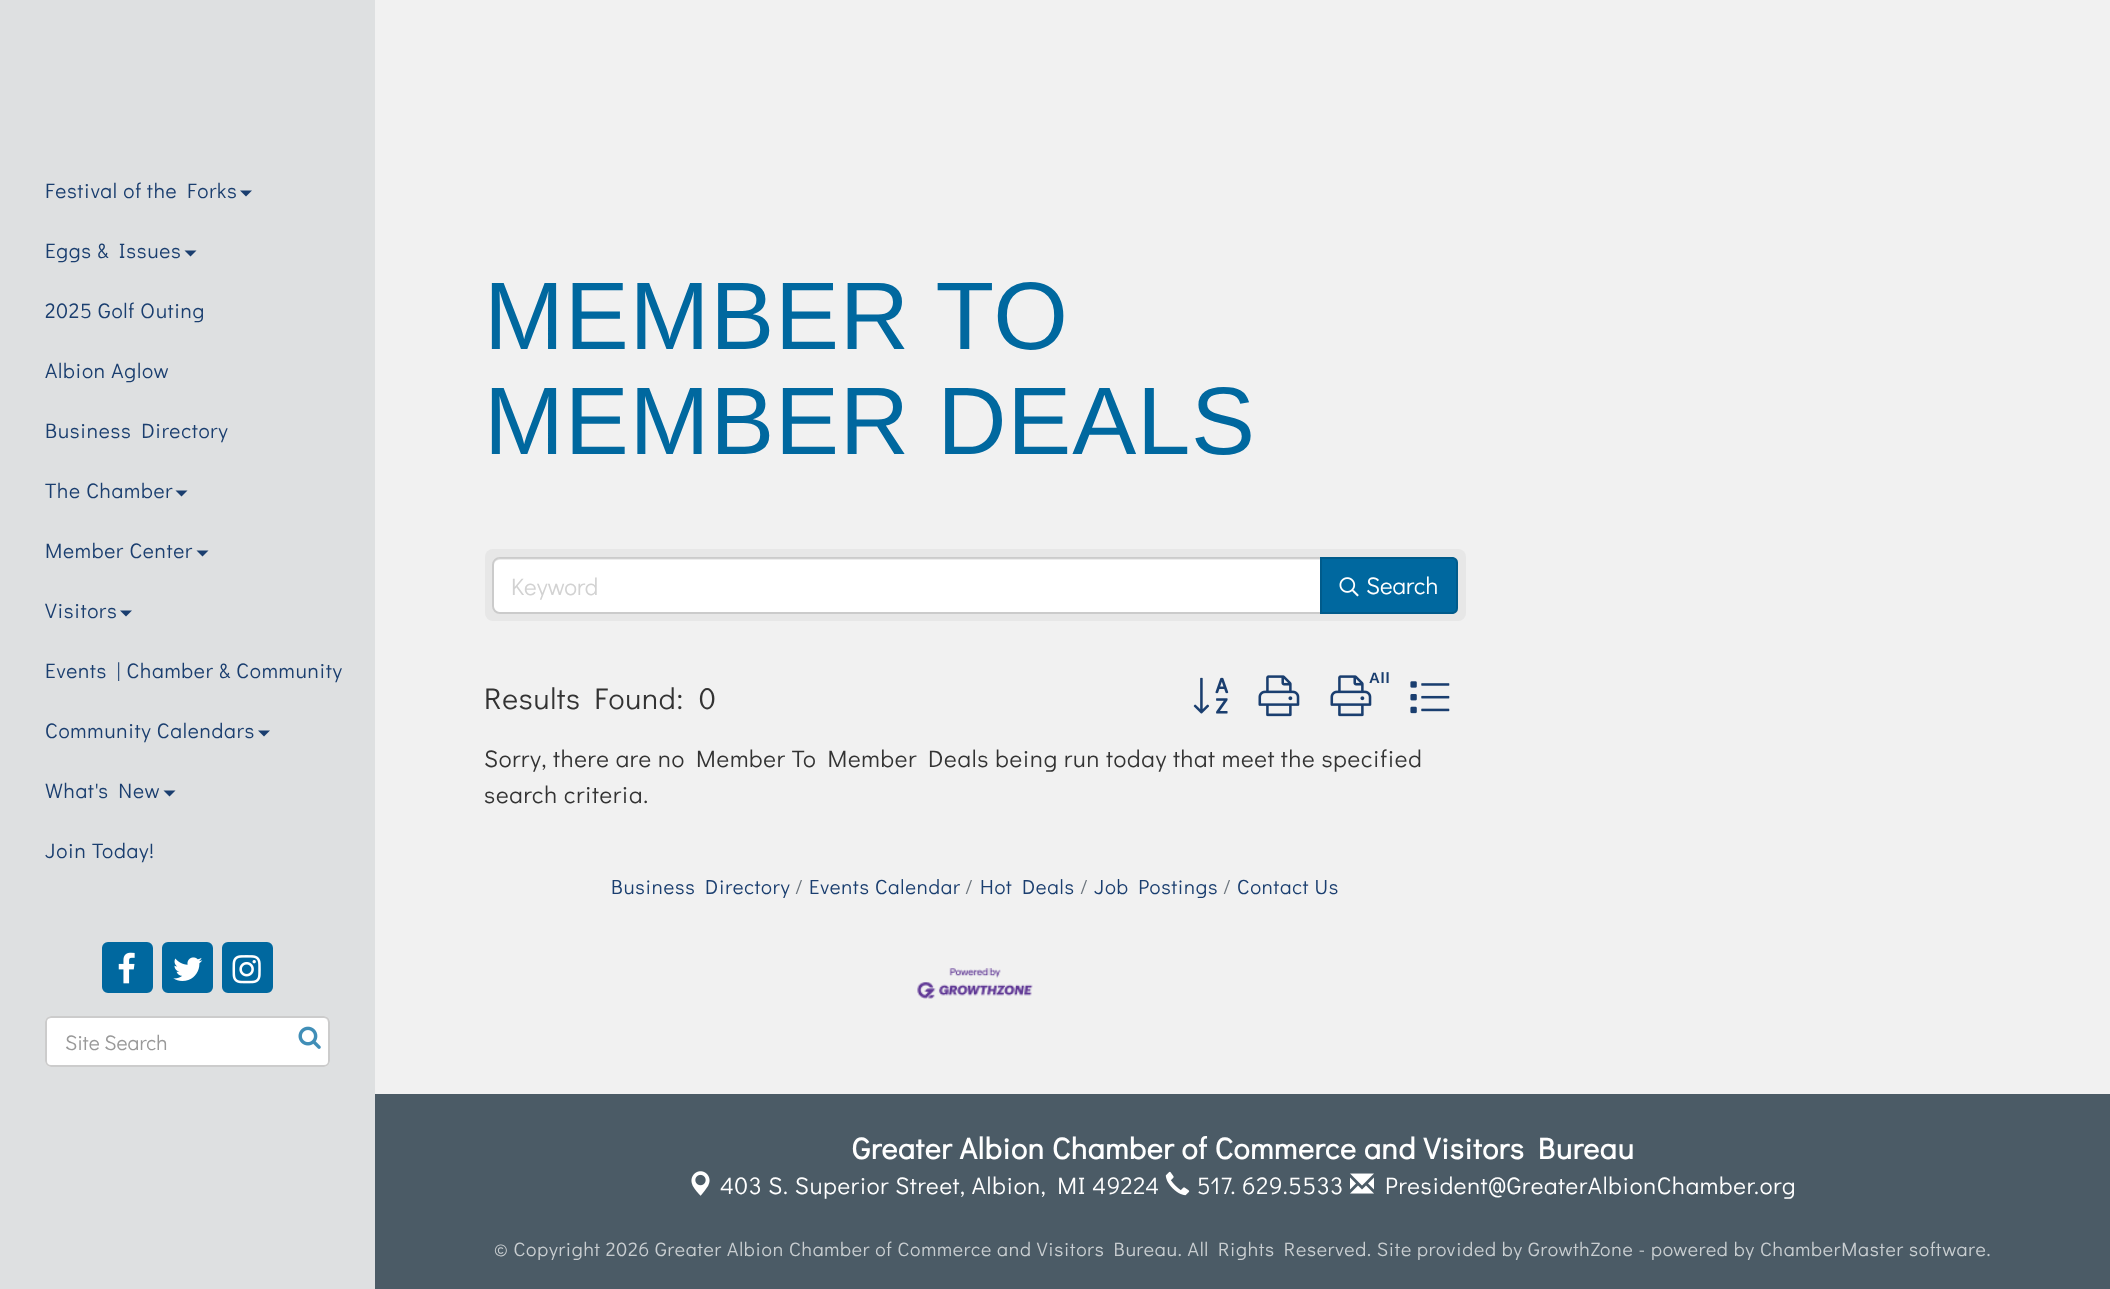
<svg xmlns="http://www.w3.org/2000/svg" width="2110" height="1289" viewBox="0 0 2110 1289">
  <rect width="100%" height="100%" fill="rgb(241,241,241)"/>
  <rect x="0" y="0" width="375" height="1289" fill="rgb(222,224,225)"/>
  <text x="45" y="198" font-family="Didact Gothic" font-size="21" letter-spacing="0.75" fill="rgb(26,62,111)">Festival of the Forks</text>
  <path d="M240 190.5H252L246 196.5Z" fill="rgb(26,62,111)"/>
  <text x="45" y="258" font-family="Didact Gothic" font-size="21" letter-spacing="0.75" fill="rgb(26,62,111)">Eggs &amp; Issues</text>
  <path d="M184.5 250.5H196.5L190.5 256.5Z" fill="rgb(26,62,111)"/>
  <g font-family="Didact Gothic" font-size="21" letter-spacing="0.75" fill="rgb(26,62,111)">
    <text x="45" y="318">2025 Golf Outing</text>
    <text x="45" y="378">Albion Aglow</text>
    <text x="45" y="438">Business Directory</text>
    <text x="45" y="498">The Chamber</text>
  </g>
  <path d="M175.5 490.5H187.5L181.5 496.5Z" fill="rgb(26,62,111)"/>
  <text x="45" y="558" font-family="Didact Gothic" font-size="21" letter-spacing="0.75" fill="rgb(26,62,111)">Member Center</text>
  <path d="M196.5 550.5H208.5L202.5 556.5Z" fill="rgb(26,62,111)"/>
  <text x="45" y="618" font-family="Didact Gothic" font-size="21" letter-spacing="0.75" fill="rgb(26,62,111)">Visitors</text>
  <path d="M120 610.5H132L126 616.5Z" fill="rgb(26,62,111)"/>
  <g font-family="Didact Gothic" font-size="21" letter-spacing="0.75" fill="rgb(26,62,111)">
    <text x="45" y="678">Events | Chamber &amp; Community</text>
    <text x="45" y="738">Community Calendars</text>
  </g>
  <path d="M258 730.5H270L264 736.5Z" fill="rgb(26,62,111)"/>
  <text x="45" y="798" font-family="Didact Gothic" font-size="21" letter-spacing="0.75" fill="rgb(26,62,111)">What's New</text>
  <path d="M163.5 790.5H175.5L169.5 796.5Z" fill="rgb(26,62,111)"/>
  <text x="45" y="858" font-family="Didact Gothic" font-size="21" letter-spacing="0.75" fill="rgb(26,62,111)">Join Today!</text>
  <rect x="103" y="943" width="49" height="49" rx="5" fill="rgb(0,104,159)" stroke="rgb(0,104,159)" stroke-width="2"/>
  <image x="118" y="952" width="17" height="32" href="pic1.png"/>
  <rect x="163" y="943" width="49" height="49" rx="5" fill="rgb(0,104,159)" stroke="rgb(0,104,159)" stroke-width="2"/>
  <image x="173" y="957" width="30" height="24" href="pic2.png"/>
  <rect x="223" y="943" width="49" height="49" rx="5" fill="rgb(0,104,159)" stroke="rgb(0,104,159)" stroke-width="2"/>
  <image x="232" y="955" width="29" height="29" href="pic3.png"/>
  <rect x="45" y="1016" width="285" height="51" rx="6" fill="rgb(255,255,255)"/>
  <path d="M51 1018H324C326 1018 328 1021 328 1023V1063C329 1062 329 1061 329 1060V1022C329 1019 327 1017 324 1017H52C50 1017 48 1018 47 1020C48 1019 50 1018 51 1018Z" fill="rgb(236,236,236)"/>
  <rect x="46" y="1017" width="283" height="49" rx="5" fill="none" stroke="rgb(204,204,204)" stroke-width="2"/>
  <text x="65" y="1050" font-family="Didact Gothic" font-size="21" fill="rgb(153,153,153)">Site Search</text>
  <image x="298" y="1026" width="23" height="23" href="pic4.png"/>
  <g font-family="Liberation Sans" font-size="96" letter-spacing="0.75" fill="rgb(0,104,159)">
    <text>
      <tspan x="484" y="349">MEMBER TO</tspan>
      <tspan x="484" y="454">MEMBER DEALS</tspan>
    </text>
  </g>
  <rect x="485" y="549" width="981" height="72" rx="8" fill="rgb(231,231,231)"/>
  <path d="M500 558H1320V612H500C496.5 612 494 609.5 494 606V564C494 560.5 496.5 558 500 558Z" fill="rgb(255,255,255)"/>
  <path d="M500 560H1320V558H500C495 558 494 562 494 566C494 562 496 560 500 560Z" fill="rgba(0,0,0,0.07)"/>
  <path d="M500 558H1321V613H500C496 613 493 610 493 606V565C493 561 496 558 500 558Z" fill="none" stroke="rgba(0,0,0,0.12)" stroke-width="2"/>
  <text x="511" y="595" font-family="Didact Gothic" font-size="24" fill="rgb(210,210,210)">Keyword</text>
  <path d="M1320 557H1452C1455.5 557 1458 559.5 1458 563V608C1458 611.5 1455.5 614 1452 614H1320Z" fill="rgb(0,104,159)"/>
  <path d="M1321 558H1452C1455 558 1457 560 1457 563V608C1457 611 1455 613 1452 613H1321Z" fill="none" stroke="rgba(0,0,0,0.12)" stroke-width="2"/>
  <image x="1339" y="577" width="20" height="20" href="pic5.png"/>
  <text x="1366" y="594" font-family="Didact Gothic" font-size="24" fill="rgb(255,255,255)">Search</text>
  <image x="1193" y="677" width="36" height="37" href="pic6.png"/>
  <image x="1258" y="675" width="42" height="42" href="pic7.png"/>
  <image x="1330" y="675" width="42" height="42" href="pic7.png"/>
  <text x="1369" y="683" font-family="Liberation Sans" font-size="15" font-weight="bold" letter-spacing="0.75" fill="rgb(26,62,111)">All</text>
  <image x="1410" y="681" width="40" height="33" href="pic8.png"/>
  <g font-family="Didact Gothic" font-size="30" letter-spacing="0.75" fill="rgb(51,51,51)">
    <text x="484" y="709">Results Found:</text>
    <text x="699" y="709">0</text>
  </g>
  <g font-family="Didact Gothic" font-size="24" letter-spacing="0.75" fill="rgb(51,51,51)">
    <text>
      <tspan x="484" y="767">Sorry, there are no Member To Member Deals being run today that meet the specified</tspan>
      <tspan x="484" y="803">search criteria.</tspan>
    </text>
  </g>
  <text x="611" y="894" font-family="Didact Gothic" font-size="20.5" letter-spacing="0.75" fill="rgb(26,62,111)">Business Directory</text>
  <text x="795" y="894" font-family="Didact Gothic" font-size="20.5" letter-spacing="0.75" fill="rgb(108,117,125)">/</text>
  <text x="809" y="894" font-family="Didact Gothic" font-size="20.5" letter-spacing="0.75" fill="rgb(26,62,111)">Events Calendar</text>
  <text x="965" y="894" font-family="Didact Gothic" font-size="20.5" letter-spacing="0.75" fill="rgb(108,117,125)">/</text>
  <text x="980" y="894" font-family="Didact Gothic" font-size="20.5" letter-spacing="0.75" fill="rgb(26,62,111)">Hot Deals</text>
  <text x="1080" y="894" font-family="Didact Gothic" font-size="20.5" letter-spacing="0.75" fill="rgb(108,117,125)">/</text>
  <text x="1094" y="894" font-family="Didact Gothic" font-size="20.5" letter-spacing="0.75" fill="rgb(26,62,111)">Job Postings</text>
  <text x="1223" y="894" font-family="Didact Gothic" font-size="20.5" letter-spacing="0.75" fill="rgb(108,117,125)">/</text>
  <text x="1237" y="894" font-family="Didact Gothic" font-size="20.5" letter-spacing="0.75" fill="rgb(26,62,111)">Contact Us</text>
  <image x="917" y="968" width="116" height="31" href="pic9.png"/>
  <rect x="375" y="1094" width="1735" height="195" fill="rgb(75,91,102)"/>
  <text x="852" y="1159" font-family="Didact Gothic" font-size="30" font-weight="bold" letter-spacing="0.75" fill="rgb(255,255,255)">Greater Albion Chamber of Commerce and Visitors Bureau</text>
  <image x="691" y="1171" width="19" height="25" href="pic10.png"/>
  <text x="720" y="1194" font-family="Didact Gothic" font-size="24" letter-spacing="0.75" fill="rgb(255,255,255)">403 S. Superior Street, Albion, MI 49224</text>
  <image x="1165" y="1171" width="25" height="25" href="pic11.png"/>
  <text x="1197" y="1194" font-family="Didact Gothic" font-size="24" letter-spacing="0.75" fill="rgb(255,255,255)">517. 629.5533</text>
  <image x="1350" y="1173" width="24" height="21" href="pic12.png"/>
  <text x="1385" y="1194" font-family="Didact Gothic" font-size="24" letter-spacing="0.75" fill="rgb(255,255,255)">President@GreaterAlbionChamber.org</text>
  <text x="494" y="1256" font-family="Didact Gothic" font-size="19.5" letter-spacing="0.75" fill="rgb(201,206,209)">© Copyright 2026 Greater Albion Chamber of Commerce and Visitors Bureau. All Rights Reserved. Site provided by GrowthZone - powered by ChamberMaster software.</text>
</svg>
